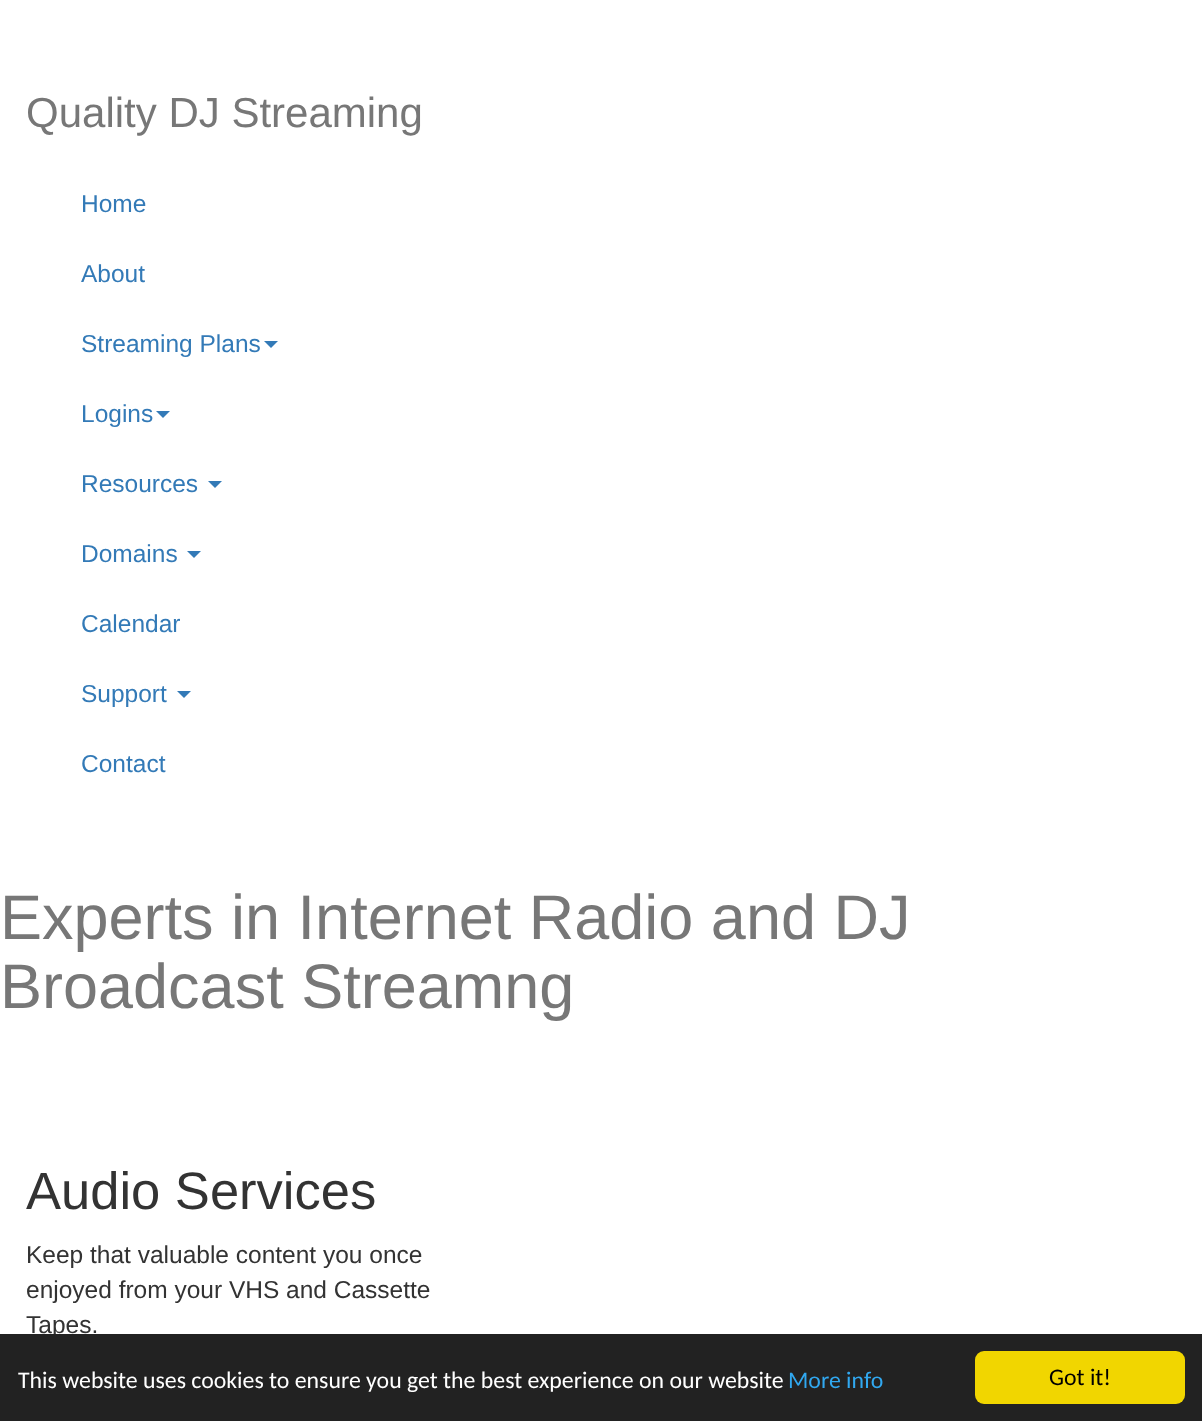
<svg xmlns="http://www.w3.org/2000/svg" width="1202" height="1421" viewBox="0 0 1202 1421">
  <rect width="100%" height="100%" fill="rgb(255,255,255)"/>
  <text x="26" y="127" font-family="Liberation Sans" font-size="42" fill="rgb(119,119,119)">Quality DJ Streaming</text>
  <g font-family="Liberation Sans" font-size="24.5" fill="rgb(51,122,183)">
    <text x="81" y="212">Home</text>
    <text x="81" y="282">About</text>
    <text x="81" y="352">Streaming Plans</text>
  </g>
  <path d="M264 341H278L271 348Z" fill="rgb(51,122,183)"/>
  <text x="81" y="422" font-family="Liberation Sans" font-size="24.5" fill="rgb(51,122,183)">Logins</text>
  <path d="M156 411H170L163 418Z" fill="rgb(51,122,183)"/>
  <text x="81" y="492" font-family="Liberation Sans" font-size="24.5" fill="rgb(51,122,183)">Resources</text>
  <path d="M208 481H222L215 488Z" fill="rgb(51,122,183)"/>
  <text x="81" y="562" font-family="Liberation Sans" font-size="24.5" fill="rgb(51,122,183)">Domains</text>
  <path d="M187 551H201L194 558Z" fill="rgb(51,122,183)"/>
  <g font-family="Liberation Sans" font-size="24.5" fill="rgb(51,122,183)">
    <text x="81" y="632">Calendar</text>
    <text x="81" y="702">Support</text>
  </g>
  <path d="M177 691H191L184 698Z" fill="rgb(51,122,183)"/>
  <text x="81" y="772" font-family="Liberation Sans" font-size="24.5" fill="rgb(51,122,183)">Contact</text>
  <g font-family="Liberation Sans" font-size="63" fill="rgb(119,119,119)">
    <text>
      <tspan x="0" y="939">Experts in Internet Radio and DJ</tspan>
      <tspan x="0" y="1008">Broadcast Streamng</tspan>
    </text>
  </g>
  <text x="26" y="1209" font-family="Liberation Sans" font-size="52.5" fill="rgb(51,51,51)">Audio Services</text>
  <g font-family="Liberation Sans" font-size="24.5" fill="rgb(51,51,51)">
    <text>
      <tspan x="26" y="1263">Keep that valuable content you once</tspan>
      <tspan x="26" y="1298">enjoyed from your VHS and Cassette</tspan>
      <tspan x="26" y="1333">Tapes.</tspan>
    </text>
  </g>
  <rect x="0" y="1334" width="1202" height="87" fill="rgb(34,34,34)"/>
  <text x="18" y="1388" font-family="Carlito" font-size="23.8" fill="rgb(255,255,255)">This website uses cookies to ensure you get the best experience on our website</text>
  <text x="788" y="1388" font-family="Carlito" font-size="23.8" fill="rgb(49,168,240)">More info</text>
  <rect x="975" y="1351" width="210" height="53" rx="9" fill="rgb(241,214,0)"/>
  <text x="1049" y="1385" font-family="Carlito" font-size="23.8" fill="rgb(0,0,0)">Got it!</text>
</svg>
